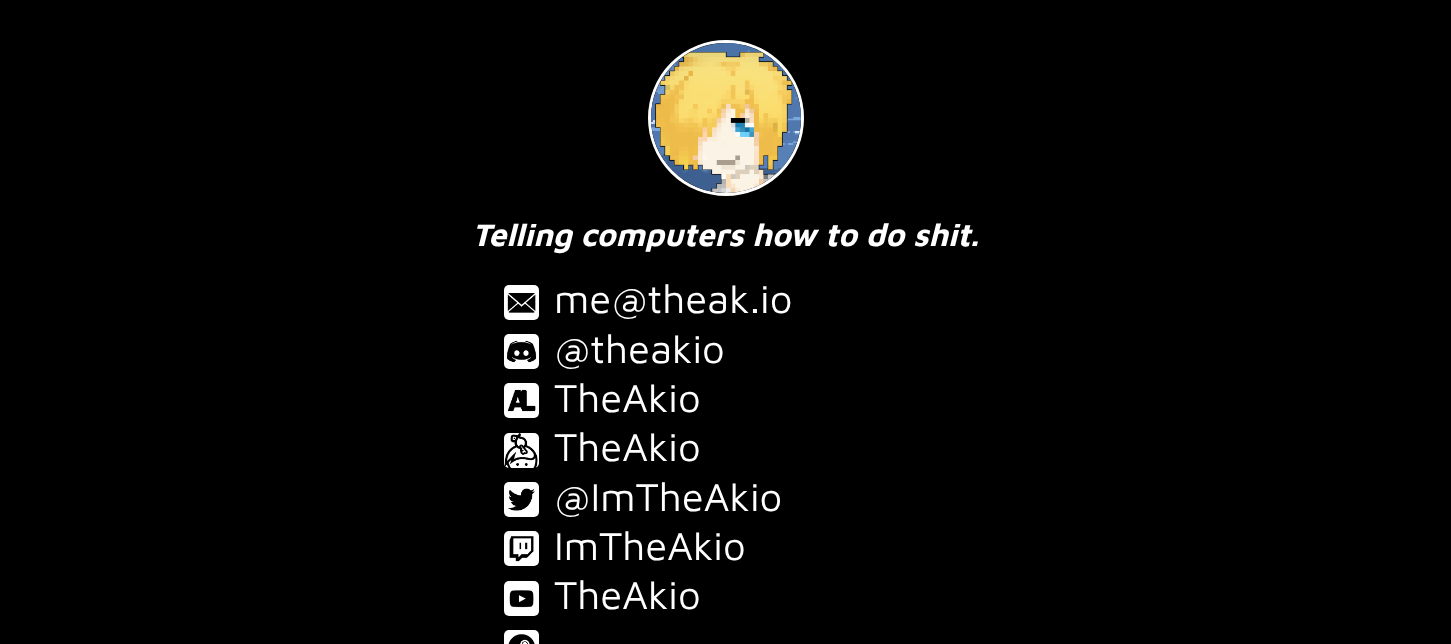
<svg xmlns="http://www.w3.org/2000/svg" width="1451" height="644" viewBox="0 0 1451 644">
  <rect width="100%" height="100%" fill="rgb(0,0,0)"/>
  <circle cx="726" cy="118" r="76.5" fill="none" stroke="rgb(255,255,255)" stroke-width="3"/>
  <image x="651" y="43" width="150" height="150" href="pic1.png"/>
  <text x="472" y="246" font-family="Maven Pro" font-size="32" font-weight="bold" font-style="italic" fill="rgb(255,255,255)">Telling computers how to do shit.</text>
  <image x="504" y="285" width="35" height="35" href="pic2.png"/>
  <text x="554" y="313" font-family="Maven Pro" font-size="40" fill="rgb(255,255,255)">me@theak.io</text>
  <image x="504" y="334" width="35" height="35" href="pic3.png"/>
  <text x="554" y="363" font-family="Maven Pro" font-size="40" fill="rgb(255,255,255)">@theakio</text>
  <image x="504" y="383" width="35" height="35" href="pic4.png"/>
  <text x="554" y="412" font-family="Maven Pro" font-size="40" fill="rgb(255,255,255)">TheAkio</text>
  <image x="504" y="433" width="35" height="35" href="pic5.png"/>
  <text x="554" y="461" font-family="Maven Pro" font-size="40" fill="rgb(255,255,255)">TheAkio</text>
  <image x="504" y="482" width="35" height="35" href="pic6.png"/>
  <text x="554" y="511" font-family="Maven Pro" font-size="40" fill="rgb(255,255,255)">@ImTheAkio</text>
  <image x="504" y="531" width="35" height="35" href="pic7.png"/>
  <text x="554" y="560" font-family="Maven Pro" font-size="40" fill="rgb(255,255,255)">ImTheAkio</text>
  <image x="504" y="581" width="35" height="35" href="pic8.png"/>
  <text x="554" y="609" font-family="Maven Pro" font-size="40" fill="rgb(255,255,255)">TheAkio</text>
  <image x="504" y="630" width="35" height="14" href="pic9.png"/>
</svg>
